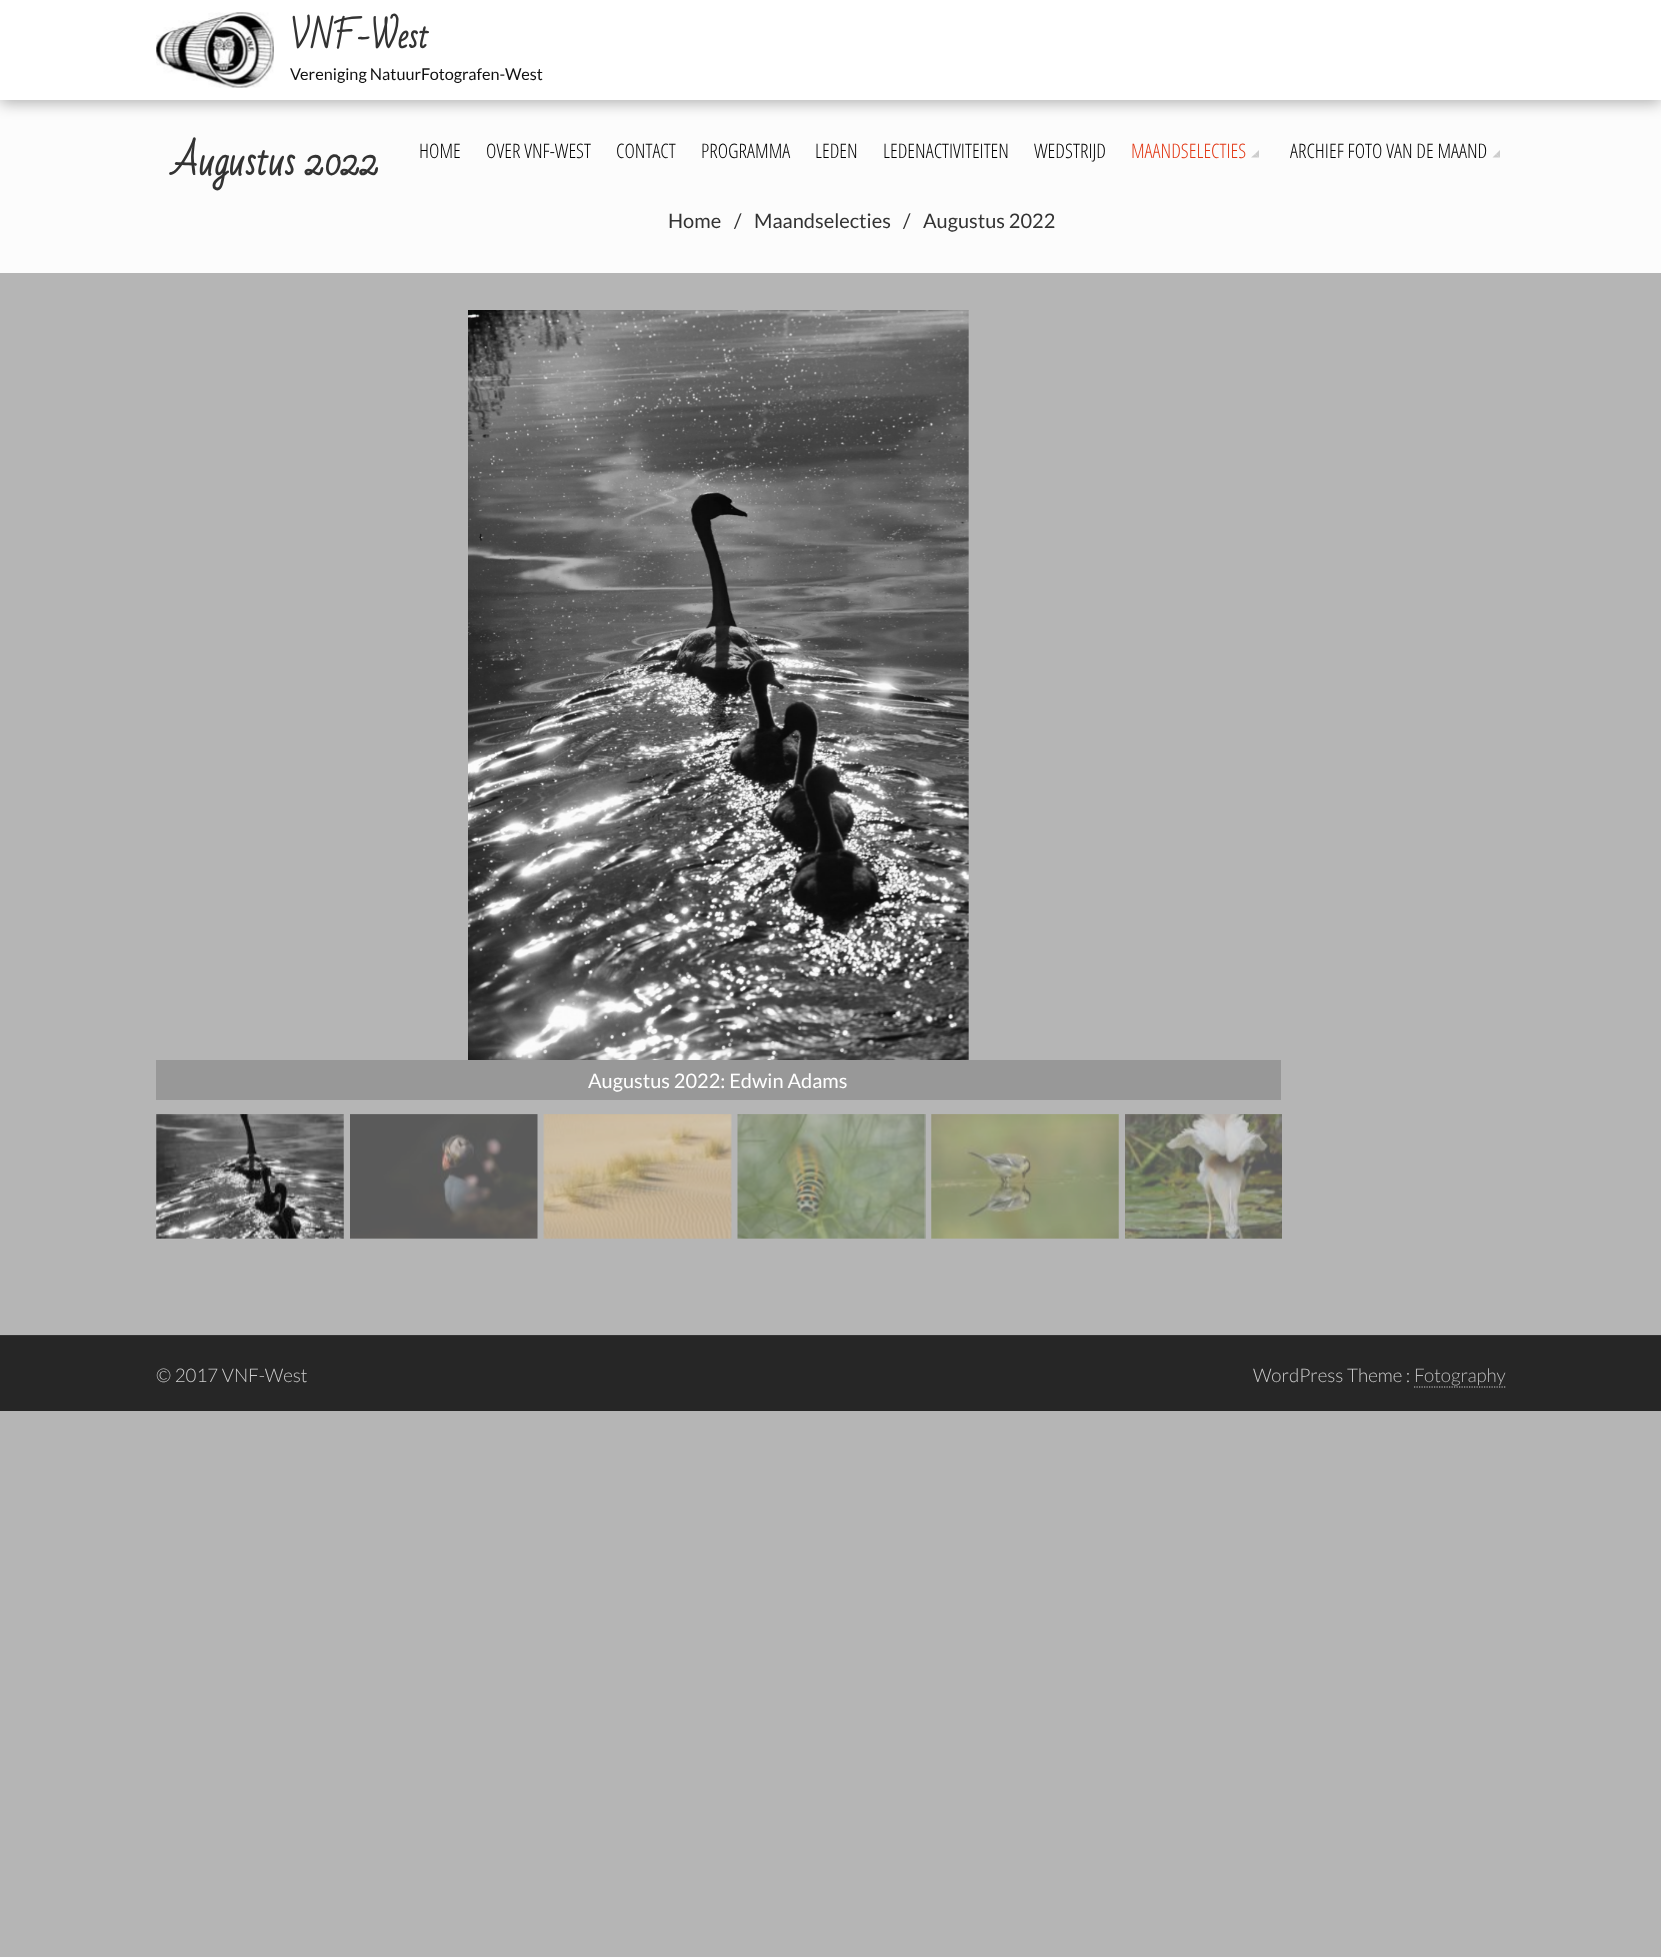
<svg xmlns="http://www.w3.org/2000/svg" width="1661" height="1957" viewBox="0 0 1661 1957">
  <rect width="100%" height="100%" fill="rgb(181,181,181)"/>
  <rect x="0" y="100" width="1661" height="173" fill="rgb(252,252,252)"/>
  <rect x="0" y="3" width="1661" height="100" fill="rgba(0,0,0,0.3)" filter="blur(7.5px)"/>
  <rect x="0" y="0" width="1661" height="100" fill="rgb(255,255,255)"/>
  <image x="156" y="12" width="118" height="76" href="pic1.png"/>
  <text x="290" y="48" font-family="Bad Script" font-size="32.5" font-weight="bold" fill="rgb(51,51,51)">VNF-West</text>
  <text x="290" y="80" font-family="Lato" font-size="16.25" fill="rgb(17,17,17)">Vereniging NatuurFotografen-West</text>
  <g font-family="Open Sans Condensed" font-size="20" font-weight="300" fill="rgb(0,0,0)">
    <text x="419" y="158">HOME</text>
    <text x="486" y="158">OVER VNF-WEST</text>
    <text x="616" y="158">CONTACT</text>
    <text x="701" y="158">PROGRAMMA</text>
    <text x="815" y="158">LEDEN</text>
    <text x="883" y="158">LEDENACTIVITEITEN</text>
    <text x="1034" y="158">WEDSTRIJD</text>
  </g>
  <text x="1131" y="158" font-family="Open Sans Condensed" font-size="20" font-weight="300" fill="rgb(226,56,21)">MAANDSELECTIES</text>
  <path d="M1259 150V157.5L1255 154Z" fill="rgb(204,204,204)"/>
  <path d="M1259 157.5H1251L1255 154Z" fill="rgb(204,204,204)"/>
  <text x="1290" y="158" font-family="Open Sans Condensed" font-size="20" font-weight="300" fill="rgb(0,0,0)">ARCHIEF FOTO VAN DE MAAND</text>
  <path d="M1500 150V157.5L1496 154Z" fill="rgb(204,204,204)"/>
  <path d="M1500 157.5H1492.5L1496 154Z" fill="rgb(204,204,204)"/>
  <text x="172" y="175" font-family="Bad Script" font-size="37.5" font-weight="bold" fill="rgb(51,51,51)">Augustus 2022</text>
  <g font-family="Lato" font-size="20" fill="rgb(51,51,51)">
    <text x="668" y="228">Home</text>
    <text x="734" y="228">/</text>
    <text x="754" y="228">Maandselecties</text>
    <text x="903" y="228">/</text>
    <text x="923" y="228">Augustus 2022</text>
  </g>
  <image x="468" y="310" width="501" height="750" href="pic2.png"/>
  <rect x="156" y="1060" width="1125" height="40" fill="rgb(152,152,152)"/>
  <text x="588" y="1088" font-family="Lato" font-size="20" fill="rgb(255,255,255)">Augustus 2022: Edwin Adams</text>
  <image x="156" y="1114" width="188" height="125" href="pic3.png"/>
  <image x="350" y="1114" width="188" height="125" href="pic4.png"/>
  <image x="543" y="1114" width="189" height="125" href="pic5.png"/>
  <image x="737" y="1114" width="189" height="125" href="pic6.png"/>
  <image x="931" y="1114" width="188" height="125" href="pic7.png"/>
  <image x="1125" y="1114" width="157" height="125" href="pic8.png"/>
  <rect x="0" y="1336" width="1661" height="75" fill="rgb(38,38,38)"/>
  <rect x="0" y="1335" width="1661" height="1" fill="rgb(51,51,51)"/>
  <g font-family="Lato" font-size="18.75" font-weight="300" fill="rgb(204,204,204)">
    <text x="156" y="1382">© 2017 VNF-West</text>
    <text x="1253" y="1382">WordPress Theme :</text>
  </g>
  <text x="1414" y="1382" font-family="Lato" font-size="18.75" font-weight="300" fill="rgb(187,187,187)">Fotography</text>
  <path d="M1414 1387H1506" fill="none" stroke="rgb(204,204,204)" stroke-width="1.2" stroke-dasharray="1.25 1.25"/>
</svg>
